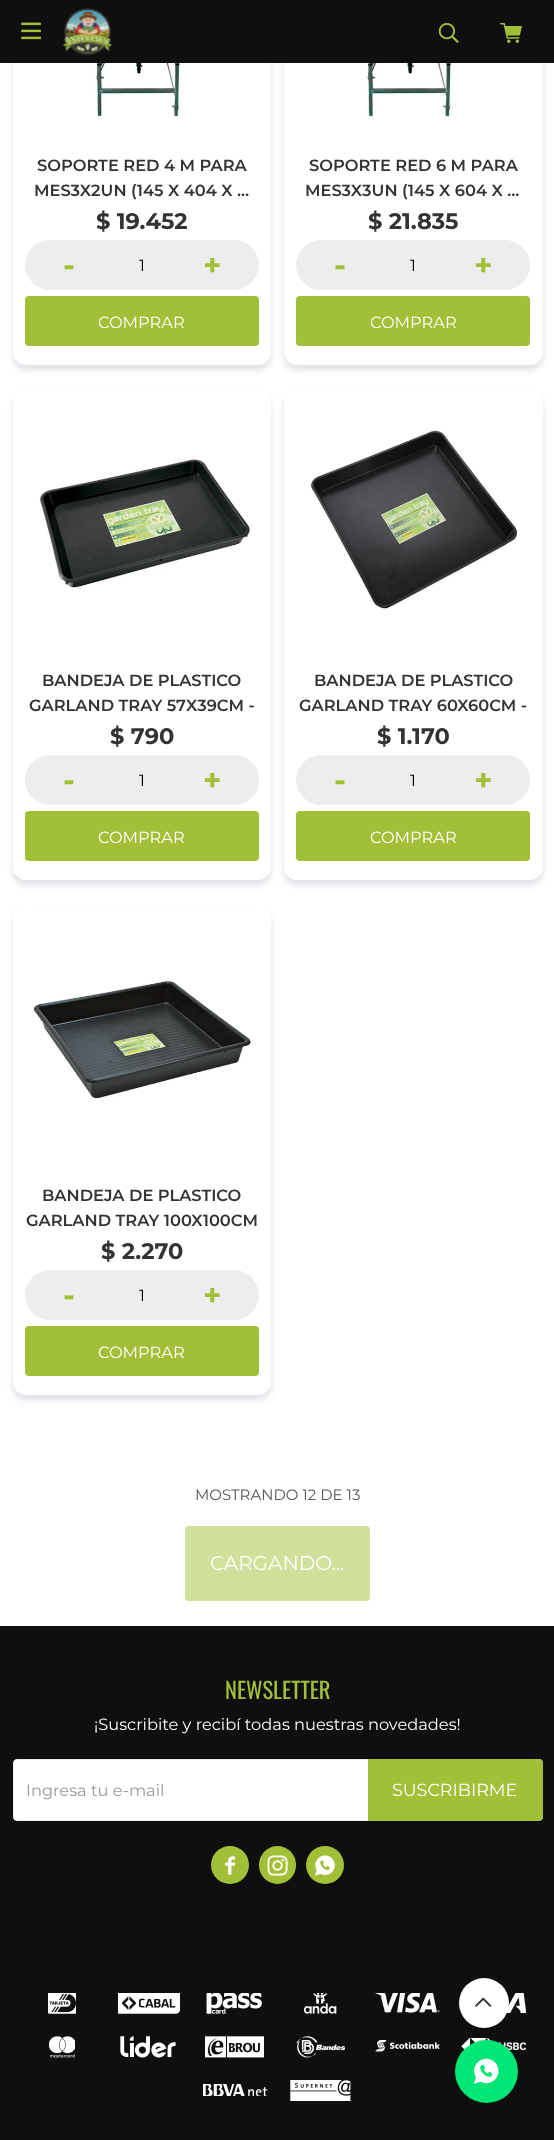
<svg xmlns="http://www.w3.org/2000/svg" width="554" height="2140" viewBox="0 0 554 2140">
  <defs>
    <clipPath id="clip1"><path d="M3 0H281V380H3ZM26-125H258C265-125 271-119 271-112V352C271 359 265 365 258 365H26C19 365 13 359 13 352V-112C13-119 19-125 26-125Z" clip-rule="evenodd"/></clipPath>
    <clipPath id="clip2"><path d="M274 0H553V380H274ZM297-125H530C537-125 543-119 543-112V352C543 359 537 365 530 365H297C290 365 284 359 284 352V-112C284-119 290-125 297-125Z" clip-rule="evenodd"/></clipPath>
    <clipPath id="clip3"><path d="M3 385H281V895H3ZM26 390H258C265 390 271 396 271 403V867C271 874 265 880 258 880H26C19 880 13 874 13 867V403C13 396 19 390 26 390Z" clip-rule="evenodd"/></clipPath>
    <clipPath id="clip4"><path d="M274 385H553V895H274ZM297 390H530C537 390 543 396 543 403V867C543 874 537 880 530 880H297C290 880 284 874 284 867V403C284 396 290 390 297 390Z" clip-rule="evenodd"/></clipPath>
    <clipPath id="clip5"><path d="M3 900H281V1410H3ZM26 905H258C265 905 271 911 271 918V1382C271 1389 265 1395 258 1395H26C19 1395 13 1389 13 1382V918C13 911 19 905 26 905Z" clip-rule="evenodd"/></clipPath>
  </defs>
  <rect width="100%" height="100%" fill="rgb(255,255,255)"/>
  <image x="62" y="63" width="152" height="55" href="pic5.png"/>
  <rect x="25.5" y="240.5" width="233" height="49" rx="24.5" fill="rgb(237,237,237)" stroke="rgb(237,237,237)"/>
  <rect x="25" y="296" width="234" height="50" rx="4" fill="rgb(162,192,55)"/>
  <g clip-path="url(#clip1)">
    <rect x="13" y="-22" width="258" height="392" rx="13" fill="rgba(50,50,93,0.15)" filter="blur(3px)"/>
  </g>
  <image x="334" y="63" width="151" height="55" href="pic6.png"/>
  <rect x="296.5" y="240.5" width="233" height="49" rx="24.5" fill="rgb(237,237,237)" stroke="rgb(237,237,237)"/>
  <rect x="296" y="296" width="234" height="50" rx="4" fill="rgb(162,192,55)"/>
  <g clip-path="url(#clip2)">
    <rect x="284" y="-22" width="259" height="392" rx="13" fill="rgba(50,50,93,0.15)" filter="blur(3px)"/>
  </g>
  <rect x="0" y="0" width="554" height="63" fill="rgb(15,15,15)"/>
  <image x="21" y="22" width="20" height="18" href="pic1.png"/>
  <image x="62" y="8" width="51" height="48" href="pic2.png"/>
  <image x="438" y="23" width="21" height="20" href="pic3.png"/>
  <image x="500" y="23" width="22" height="20" href="pic4.png"/>
  <g font-family="Montserrat" font-size="16.25" font-weight="600" fill="rgb(51,51,51)">
    <text x="37" y="171">SOPORTE RED 4 M PARA</text>
    <text x="34" y="196">MES3X2UN (145 X 404 X …</text>
  </g>
  <text x="96" y="229" font-family="Montserrat" font-size="22.5" font-weight="bold" fill="rgb(51,51,51)">$ 19.452</text>
  <text x="63" y="276" font-family="Montserrat" font-size="31" font-weight="bold" fill="rgb(162,192,55)">-</text>
  <text x="139" y="271" font-family="Montserrat" font-size="16.25" fill="rgb(0,0,0)">1</text>
  <text x="203" y="276" font-family="Montserrat" font-size="31" font-weight="bold" fill="rgb(162,192,55)">+</text>
  <text x="98" y="328" font-family="Montserrat" font-size="16.25" fill="rgb(255,255,255)">COMPRAR</text>
  <g font-family="Montserrat" font-size="16.25" font-weight="600" fill="rgb(51,51,51)">
    <text x="309" y="171">SOPORTE RED 6 M PARA</text>
    <text x="305" y="196">MES3X3UN (145 X 604 X …</text>
  </g>
  <text x="368" y="229" font-family="Montserrat" font-size="22.5" font-weight="bold" fill="rgb(51,51,51)">$ 21.835</text>
  <text x="334" y="276" font-family="Montserrat" font-size="31" font-weight="bold" fill="rgb(162,192,55)">-</text>
  <text x="410" y="271" font-family="Montserrat" font-size="16.25" fill="rgb(0,0,0)">1</text>
  <text x="474" y="276" font-family="Montserrat" font-size="31" font-weight="bold" fill="rgb(162,192,55)">+</text>
  <text x="370" y="328" font-family="Montserrat" font-size="16.25" fill="rgb(255,255,255)">COMPRAR</text>
  <image x="39" y="459" width="211" height="129" href="pic7.png"/>
  <rect x="25.5" y="755.5" width="233" height="49" rx="24.5" fill="rgb(237,237,237)" stroke="rgb(237,237,237)"/>
  <rect x="25" y="811" width="234" height="50" rx="4" fill="rgb(162,192,55)"/>
  <g clip-path="url(#clip3)">
    <rect x="13" y="395" width="258" height="490" rx="13" fill="rgba(50,50,93,0.15)" filter="blur(3px)"/>
  </g>
  <g font-family="Montserrat" font-size="16.25" font-weight="600" fill="rgb(51,51,51)">
    <text x="42" y="686">BANDEJA DE PLASTICO</text>
    <text x="29" y="711">GARLAND TRAY 57X39CM -</text>
  </g>
  <text x="110" y="744" font-family="Montserrat" font-size="22.5" font-weight="bold" fill="rgb(51,51,51)">$ 790</text>
  <text x="63" y="791" font-family="Montserrat" font-size="31" font-weight="bold" fill="rgb(162,192,55)">-</text>
  <text x="139" y="786" font-family="Montserrat" font-size="16.25" fill="rgb(0,0,0)">1</text>
  <text x="203" y="791" font-family="Montserrat" font-size="31" font-weight="bold" fill="rgb(162,192,55)">+</text>
  <text x="98" y="843" font-family="Montserrat" font-size="16.25" fill="rgb(255,255,255)">COMPRAR</text>
  <image x="311" y="430" width="206" height="180" href="pic8.png"/>
  <rect x="296.5" y="755.5" width="233" height="49" rx="24.5" fill="rgb(237,237,237)" stroke="rgb(237,237,237)"/>
  <rect x="296" y="811" width="234" height="50" rx="4" fill="rgb(162,192,55)"/>
  <g clip-path="url(#clip4)">
    <rect x="284" y="395" width="259" height="490" rx="13" fill="rgba(50,50,93,0.15)" filter="blur(3px)"/>
  </g>
  <g font-family="Montserrat" font-size="16.25" font-weight="600" fill="rgb(51,51,51)">
    <text x="314" y="686">BANDEJA DE PLASTICO</text>
    <text x="299" y="711">GARLAND TRAY 60X60CM -</text>
  </g>
  <text x="377" y="744" font-family="Montserrat" font-size="22.5" font-weight="bold" fill="rgb(51,51,51)">$ 1.170</text>
  <text x="334" y="791" font-family="Montserrat" font-size="31" font-weight="bold" fill="rgb(162,192,55)">-</text>
  <text x="410" y="786" font-family="Montserrat" font-size="16.25" fill="rgb(0,0,0)">1</text>
  <text x="474" y="791" font-family="Montserrat" font-size="31" font-weight="bold" fill="rgb(162,192,55)">+</text>
  <text x="370" y="843" font-family="Montserrat" font-size="16.25" fill="rgb(255,255,255)">COMPRAR</text>
  <image x="33" y="981" width="218" height="118" href="pic9.png"/>
  <rect x="25.5" y="1270.5" width="233" height="49" rx="24.5" fill="rgb(237,237,237)" stroke="rgb(237,237,237)"/>
  <rect x="25" y="1326" width="234" height="50" rx="4" fill="rgb(162,192,55)"/>
  <g clip-path="url(#clip5)">
    <rect x="13" y="910" width="258" height="490" rx="13" fill="rgba(50,50,93,0.15)" filter="blur(3px)"/>
  </g>
  <g font-family="Montserrat" font-size="16.25" font-weight="600" fill="rgb(51,51,51)">
    <text x="42" y="1201">BANDEJA DE PLASTICO</text>
    <text x="26" y="1226">GARLAND TRAY 100X100CM</text>
  </g>
  <text x="101" y="1259" font-family="Montserrat" font-size="22.5" font-weight="bold" fill="rgb(51,51,51)">$ 2.270</text>
  <text x="63" y="1306" font-family="Montserrat" font-size="31" font-weight="bold" fill="rgb(162,192,55)">-</text>
  <text x="139" y="1301" font-family="Montserrat" font-size="16.25" fill="rgb(0,0,0)">1</text>
  <text x="203" y="1306" font-family="Montserrat" font-size="31" font-weight="bold" fill="rgb(162,192,55)">+</text>
  <text x="98" y="1358" font-family="Montserrat" font-size="16.25" fill="rgb(255,255,255)">COMPRAR</text>
  <text x="195" y="1500" font-family="Montserrat" font-size="15" fill="rgb(85,85,85)">MOSTRANDO 12 DE 13</text>
  <rect x="185" y="1526" width="185" height="75" rx="4" fill="rgb(209,224,155)"/>
  <text x="210" y="1570" font-family="Montserrat" font-size="20" fill="rgb(255,255,255)">CARGANDO...</text>
  <rect x="0" y="1626" width="554" height="514" fill="rgb(15,15,15)"/>
  <image x="506" y="1993" width="20" height="20" href="pic19.png"/>
  <circle cx="484" cy="2003" r="25" fill="rgb(255,255,255)"/>
  <image x="475" y="1997" width="17" height="10" href="pic10.png"/>
  <text x="225" y="1699" font-family="Oswald" font-size="22.5" fill="rgb(162,192,55)">NEWSLETTER</text>
  <text x="94" y="1730" font-family="Montserrat" font-size="16.25" fill="rgb(255,255,255)">¡Suscribite y recibí todas nuestras novedades!</text>
  <rect x="13.5" y="1759.5" width="529" height="61" rx="3.5" fill="rgb(255,255,255)" stroke="rgb(237,237,237)"/>
  <text x="26" y="1796" font-family="Montserrat" font-size="16.25" fill="rgb(153,153,153)">Ingresa tu e-mail</text>
  <path d="M368 1759H539C541 1759 543 1761 543 1763V1817C543 1819 541 1821 539 1821H368Z" fill="rgb(162,192,55)"/>
  <text x="392" y="1796" font-family="Montserrat" font-size="17.5" fill="rgb(255,255,255)">SUSCRIBIRME</text>
  <circle cx="230" cy="1865" r="19" fill="rgb(162,192,55)"/>
  <image x="225" y="1856" width="10" height="19" href="pic11.png"/>
  <rect x="259" y="1846" width="37" height="38" rx="18.5" fill="rgb(162,192,55)"/>
  <image x="267" y="1855" width="21" height="21" href="pic12.png"/>
  <circle cx="325" cy="1865" r="19" fill="rgb(162,192,55)"/>
  <image x="315" y="1855" width="20" height="21" href="pic13.png"/>
  <image x="48" y="1993" width="28" height="21" href="pic14.png"/>
  <image x="118" y="1993" width="62" height="21" href="pic15.png"/>
  <image x="206" y="1993" width="56" height="21" href="pic16.png"/>
  <image x="304" y="1993" width="33" height="21" href="pic17.png"/>
  <image x="375" y="1993" width="65" height="20" href="pic18.png"/>
  <image x="49" y="2036" width="26" height="22" href="pic20.png"/>
  <image x="120" y="2036" width="56" height="22" href="pic21.png"/>
  <image x="205" y="2036" width="59" height="22" href="pic22.png"/>
  <image x="296" y="2036" width="49" height="22" href="pic23.png"/>
  <image x="375" y="2040" width="65" height="12" href="pic24.png"/>
  <image x="461" y="2038" width="65" height="13" href="pic25.png"/>
  <image x="203" y="2084" width="65" height="12" href="pic26.png"/>
  <image x="290" y="2080" width="61" height="21" href="pic27.png"/>
  <circle cx="486.5" cy="2071.5" r="31.5" fill="rgb(1,230,117)"/>
  <image x="474" y="2058" width="25" height="26" href="pic28.png"/>
</svg>
